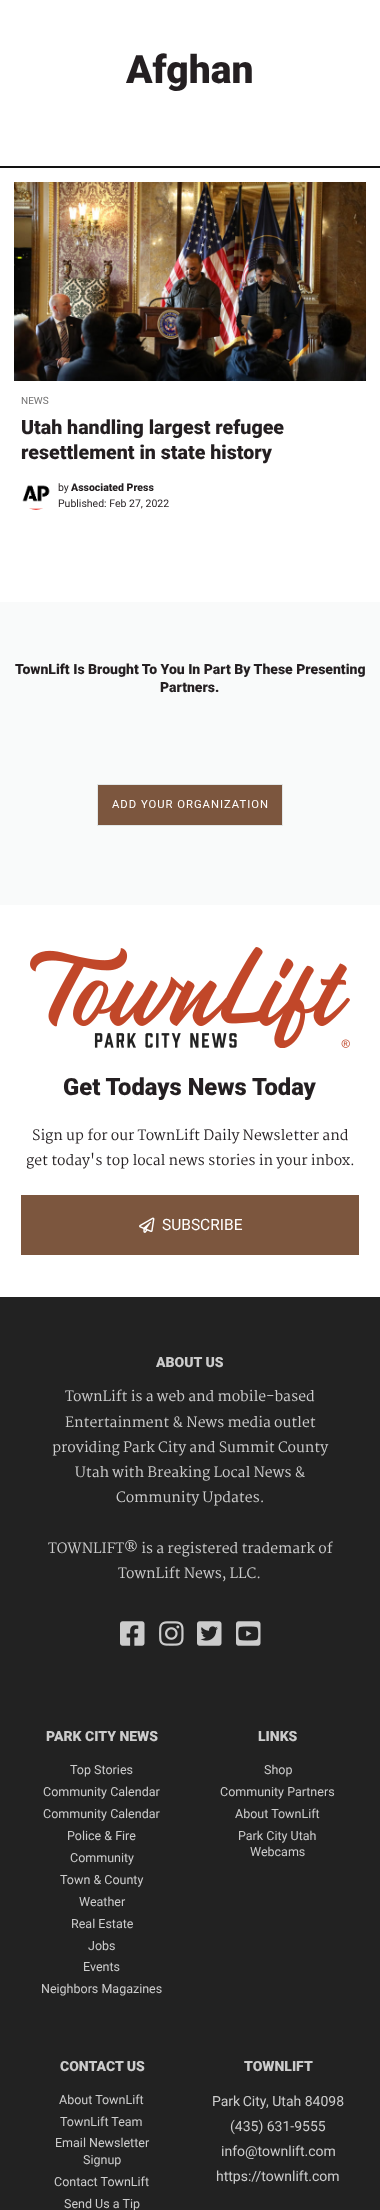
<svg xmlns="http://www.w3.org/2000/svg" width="380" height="2210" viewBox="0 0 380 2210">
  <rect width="100%" height="100%" fill="rgb(255,255,255)"/>
  <text x="126" y="83" font-family="Roboto" font-size="39" font-weight="900" fill="rgb(36,31,33)">Afghan</text>
  <rect x="0" y="166" width="380" height="2" fill="rgb(18,18,18)"/>
  <image x="14" y="182" width="352" height="199" href="pic1.png"/>
  <text x="21" y="404" font-family="Roboto" font-size="10" fill="rgb(115,114,114)">NEWS</text>
  <g font-family="Roboto" font-size="19.6" font-weight="900" fill="rgb(36,31,33)">
    <text>
      <tspan x="21" y="434">Utah handling largest refugee</tspan>
      <tspan x="21" y="459">resettlement in state history</tspan>
    </text>
  </g>
  <image x="22" y="485" width="28" height="25" href="pic2.png"/>
  <text x="58" y="491" font-family="Roboto" font-size="10.5" fill="rgb(36,31,33)">by</text>
  <text x="71" y="491" font-family="Roboto" font-size="10.5" font-weight="900" fill="rgb(36,31,33)">Associated Press</text>
  <text x="58" y="507" font-family="Roboto" font-size="10.5" fill="rgb(36,31,33)">Published: Feb 27, 2022</text>
  <rect x="0" y="602" width="380" height="303" fill="rgb(249,250,250)"/>
  <g font-family="Roboto" font-size="14" font-weight="900" fill="rgb(36,31,33)">
    <text x="15" y="674">TownLift Is Brought To You In Part By These Presenting</text>
    <text x="160" y="692">Partners.</text>
  </g>
  <rect x="97.5" y="784.5" width="185" height="41" fill="rgb(124,86,62)" stroke="rgb(227,231,231)"/>
  <text x="112" y="808" font-family="Roboto" font-size="11.25" letter-spacing="1" fill="rgb(255,255,255)">ADD YOUR ORGANIZATION</text>
  <image x="30" y="947" width="320" height="101" href="pic3.png"/>
  <text x="63" y="1095" font-family="Roboto" font-size="23.75" font-weight="900" fill="rgb(36,31,33)">Get Todays News Today</text>
  <g font-family="Martel" font-size="14" fill="rgb(36,31,33)">
    <text x="32" y="1140">Sign up for our TownLift Daily Newsletter and</text>
    <text x="26" y="1165">get today's top local news stories in your inbox.</text>
  </g>
  <rect x="21" y="1195" width="338" height="60" fill="rgb(124,86,62)"/>
  <image x="139" y="1217" width="16" height="16" href="pic4.png"/>
  <text x="162" y="1230" font-family="Roboto" font-size="15.5" fill="rgb(255,255,255)">SUBSCRIBE</text>
  <rect x="0" y="1297" width="380" height="913" fill="rgb(34,34,34)"/>
  <text x="156" y="1367" font-family="Roboto" font-size="14" font-weight="900" fill="rgb(204,204,204)">ABOUT US</text>
  <g font-family="Martel" font-size="14" fill="rgb(204,204,204)">
    <text>
      <tspan x="65" y="1401">TownLift is a web and mobile-based</tspan>
      <tspan x="65" y="1427">Entertainment &amp; News media outlet</tspan>
    </text>
    <text x="52" y="1452">providing Park City and Summit County</text>
    <text x="75" y="1477">Utah with Breaking Local News &amp;</text>
    <text x="116" y="1502">Community Updates.</text>
    <text x="48" y="1553">TOWNLIFT® is a registered trademark of</text>
    <text x="118" y="1578">TownLift News, LLC.</text>
  </g>
  <image x="120" y="1621" width="25" height="25" href="pic5.png"/>
  <image x="159" y="1621" width="25" height="25" href="pic6.png"/>
  <image x="197" y="1621" width="25" height="25" href="pic7.png"/>
  <image x="236" y="1621" width="25" height="25" href="pic8.png"/>
  <text x="46" y="1741" font-family="Roboto" font-size="14" font-weight="900" fill="rgb(204,204,204)">PARK CITY NEWS</text>
  <g font-family="Roboto" font-size="12.5" fill="rgb(204,204,204)">
    <text x="70" y="1774">Top Stories</text>
    <text>
      <tspan x="43" y="1796">Community Calendar</tspan>
      <tspan x="43" y="1818">Community Calendar</tspan>
    </text>
    <text x="67" y="1840">Police &amp; Fire</text>
    <text x="70" y="1862">Community</text>
    <text x="60" y="1884">Town &amp; County</text>
    <text x="79" y="1906">Weather</text>
    <text x="71" y="1928">Real Estate</text>
    <text x="88" y="1950">Jobs</text>
    <text x="83" y="1971">Events</text>
    <text x="41" y="1993">Neighbors Magazines</text>
  </g>
  <text x="258" y="1741" font-family="Roboto" font-size="14" font-weight="900" fill="rgb(204,204,204)">LINKS</text>
  <g font-family="Roboto" font-size="12.5" fill="rgb(204,204,204)">
    <text x="264" y="1774">Shop</text>
    <text x="220" y="1796">Community Partners</text>
    <text x="235" y="1818">About TownLift</text>
    <text x="238" y="1840">Park City Utah</text>
    <text x="250" y="1856">Webcams</text>
  </g>
  <text x="60" y="2071" font-family="Roboto" font-size="14" font-weight="900" fill="rgb(204,204,204)">CONTACT US</text>
  <g font-family="Roboto" font-size="12.5" fill="rgb(204,204,204)">
    <text x="59" y="2104">About TownLift</text>
    <text x="60" y="2126">TownLift Team</text>
    <text x="55" y="2147">Email Newsletter</text>
    <text x="83" y="2164">Signup</text>
    <text x="54" y="2186">Contact TownLift</text>
    <text x="64" y="2208">Send Us a Tip</text>
  </g>
  <text x="244" y="2071" font-family="Roboto" font-size="14" font-weight="900" fill="rgb(204,204,204)">TOWNLIFT</text>
  <g font-family="Roboto" font-size="14" fill="rgb(204,204,204)">
    <text x="212" y="2106" word-spacing="-1">Park City</text>
    <text x="266" y="2106">, Utah 84098</text>
    <text x="230" y="2131">(435) 631-9555</text>
    <text x="221" y="2156">info@townlift.com</text>
    <text x="216" y="2181">https://townlift.com</text>
  </g>
</svg>
